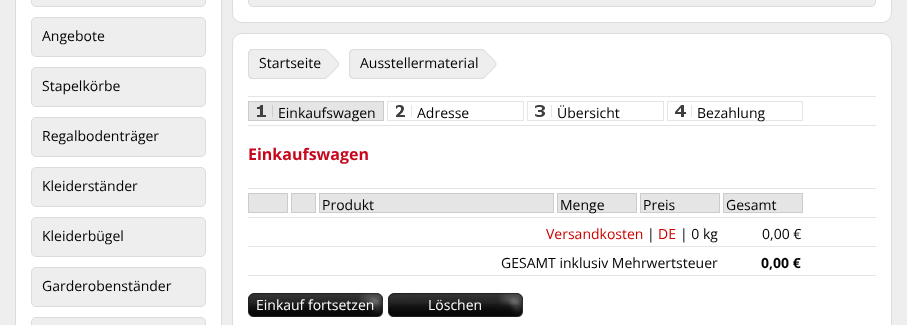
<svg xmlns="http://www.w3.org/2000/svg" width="907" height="325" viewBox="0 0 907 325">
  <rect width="100%" height="100%" fill="rgb(238,238,238)"/>
  <rect x="232.5" y="-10.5" width="659" height="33" rx="9.5" fill="rgb(255,255,255)" stroke="rgb(220,220,220)"/>
  <rect x="248.5" y="-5.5" width="627" height="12" rx="4.5" fill="rgb(238,238,238)" stroke="rgb(220,220,220)"/>
  <rect x="15.5" y="-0.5" width="206" height="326" fill="rgb(255,255,255)" stroke="rgb(220,220,220)"/>
  <rect x="31.5" y="-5.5" width="174" height="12" rx="4.5" fill="rgb(238,238,238)" stroke="rgb(220,220,220)"/>
  <rect x="31.5" y="17.5" width="174" height="39" rx="4.5" fill="rgb(238,238,238)" stroke="rgb(220,220,220)"/>
  <text x="42" y="41" font-family="Open Sans" font-size="14" fill="rgb(0,0,0)">Angebote</text>
  <rect x="31.5" y="67.5" width="174" height="39" rx="4.5" fill="rgb(238,238,238)" stroke="rgb(220,220,220)"/>
  <text x="42" y="91" font-family="Open Sans" font-size="14" fill="rgb(0,0,0)">Stapelkörbe</text>
  <rect x="31.5" y="117.5" width="174" height="39" rx="4.5" fill="rgb(238,238,238)" stroke="rgb(220,220,220)"/>
  <text x="42" y="141" font-family="Open Sans" font-size="14" fill="rgb(0,0,0)">Regalbodenträger</text>
  <rect x="31.5" y="167.5" width="174" height="39" rx="4.5" fill="rgb(238,238,238)" stroke="rgb(220,220,220)"/>
  <text x="42" y="191" font-family="Open Sans" font-size="14" fill="rgb(0,0,0)">Kleiderständer</text>
  <rect x="31.5" y="217.5" width="174" height="39" rx="4.5" fill="rgb(238,238,238)" stroke="rgb(220,220,220)"/>
  <text x="42" y="241" font-family="Open Sans" font-size="14" fill="rgb(0,0,0)">Kleiderbügel</text>
  <rect x="31.5" y="267.5" width="174" height="39" rx="4.5" fill="rgb(238,238,238)" stroke="rgb(220,220,220)"/>
  <text x="42" y="291" font-family="Open Sans" font-size="14" fill="rgb(0,0,0)">Garderobenständer</text>
  <rect x="31.5" y="317.5" width="174" height="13" rx="4.5" fill="rgb(238,238,238)" stroke="rgb(220,220,220)"/>
  <rect x="232.5" y="33.5" width="659" height="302" rx="9.5" fill="rgb(255,255,255)" stroke="rgb(220,220,220)"/>
  <path d="M327.5 50.5L334 57C336.5 59.5 341 63 338 67L332.5 72.5C324 81 324 81 315.5 72.5C310.5 67.5 306 65 312.5 59L320.5 50.5C322.5 48.5 325.5 48.5 327.5 50.5Z" fill="rgb(238,238,238)"/>
  <path d="M327.5 51L337 61C339 62.5 339 65.5 337 67L327.5 77C325.5 79 322.5 79 321 77L311 67C309 65.5 309 62.5 311 61L321 51C322.5 49 325.5 49 327.5 51Z" fill="none" stroke="rgb(220,220,220)"/>
  <rect x="248" y="49" width="80" height="30" rx="5" fill="rgb(238,238,238)"/>
  <path d="M253 49H323C326 49 328 51 328 54V74C328 77 326 79 323 79H253C250 79 248 77 248 74V54C248 51 250 49 253 49ZM253 50H323C326 50 328 52 328 54V74C328 76 326 78 323 78H253C251 78 249 76 249 74V54C249 52 251 50 253 50Z" fill="rgb(220,220,220)" fill-rule="evenodd"/>
  <text x="259" y="68" font-family="Open Sans" font-size="14" fill="rgb(0,0,0)">Startseite</text>
  <path d="M485 50.5L491.5 57C494 59.5 498 63 495.5 67L490 72.5C481.5 81 481.5 81 473 72.5C468 67.5 463.5 65 469.5 59L478 50.5C480 48.5 483 48.5 485 50.5Z" fill="rgb(238,238,238)"/>
  <path d="M484.5 51L494.5 61C496.5 62.5 496.5 65.5 494.5 67L484.5 77C483 79 480 79 478.5 77L468.5 67C466.5 65.5 466.5 62.5 468.5 61L478.5 51C480 49 483 49 484.5 51Z" fill="none" stroke="rgb(220,220,220)"/>
  <rect x="349" y="49" width="137" height="30" rx="5" fill="rgb(238,238,238)"/>
  <path d="M354 49H481C484 49 486 51 486 54V74C486 77 484 79 481 79H354C351 79 349 77 349 74V54C349 51 351 49 354 49ZM354 50H481C484 50 486 52 486 54V74C486 76 484 78 481 78H354C352 78 350 76 350 74V54C350 52 352 50 354 50Z" fill="rgb(220,220,220)" fill-rule="evenodd"/>
  <text x="360" y="68" font-family="Open Sans" font-size="14" fill="rgb(0,0,0)">Ausstellermaterial</text>
  <rect x="248" y="96" width="628" height="1" fill="rgb(229,229,229)"/>
  <rect x="248" y="125" width="628" height="1" fill="rgb(229,229,229)"/>
  <image x="248" y="101" width="136" height="20" href="pic1.png"/>
  <text x="278" y="118" font-family="Open Sans" font-size="14" fill="rgb(0,0,0)">Einkaufswagen</text>
  <image x="387" y="101" width="137" height="20" href="pic2.png"/>
  <text x="417" y="118" font-family="Open Sans" font-size="14" fill="rgb(0,0,0)">Adresse</text>
  <image x="527" y="101" width="137" height="20" href="pic3.png"/>
  <text x="557" y="118" font-family="Open Sans" font-size="14" fill="rgb(0,0,0)">Übersicht</text>
  <image x="667" y="101" width="136" height="20" href="pic4.png"/>
  <text x="697" y="118" font-family="Open Sans" font-size="14" fill="rgb(0,0,0)">Bezahlung</text>
  <text x="248" y="160" font-family="Open Sans" font-size="16" font-weight="bold" fill="rgb(199,7,29)">Einkaufswagen</text>
  <rect x="248" y="188" width="628" height="1" fill="rgb(229,229,229)"/>
  <rect x="248" y="217" width="628" height="1" fill="rgb(229,229,229)"/>
  <rect x="248.5" y="193.5" width="39" height="19" fill="rgb(229,229,229)" stroke="rgb(204,204,204)"/>
  <rect x="291.5" y="193.5" width="24" height="19" fill="rgb(229,229,229)" stroke="rgb(204,204,204)"/>
  <rect x="319.5" y="193.5" width="234" height="19" fill="rgb(229,229,229)" stroke="rgb(204,204,204)"/>
  <text x="322" y="210" font-family="Open Sans" font-size="14" fill="rgb(0,0,0)">Produkt</text>
  <rect x="557.5" y="193.5" width="79" height="19" fill="rgb(229,229,229)" stroke="rgb(204,204,204)"/>
  <text x="560" y="210" font-family="Open Sans" font-size="14" fill="rgb(0,0,0)">Menge</text>
  <rect x="640.5" y="193.5" width="79" height="19" fill="rgb(229,229,229)" stroke="rgb(204,204,204)"/>
  <text x="643" y="210" font-family="Open Sans" font-size="14" fill="rgb(0,0,0)">Preis</text>
  <rect x="723.5" y="193.5" width="79" height="19" fill="rgb(229,229,229)" stroke="rgb(204,204,204)"/>
  <text x="726" y="210" font-family="Open Sans" font-size="14" fill="rgb(0,0,0)">Gesamt</text>
  <rect x="248" y="246" width="628" height="1" fill="rgb(229,229,229)"/>
  <text x="546" y="239" font-family="Open Sans" font-size="14" fill="rgb(204,0,0)">Versandkosten</text>
  <text x="647" y="239" font-family="Open Sans" font-size="14" fill="rgb(0,0,0)">|</text>
  <text x="658" y="239" font-family="Open Sans" font-size="14" fill="rgb(204,0,0)">DE</text>
  <g font-family="Open Sans" font-size="14" fill="rgb(0,0,0)">
    <text x="680" y="239">| 0 kg</text>
    <text x="762" y="239">0,00 €</text>
  </g>
  <rect x="248" y="275" width="628" height="1" fill="rgb(229,229,229)"/>
  <text x="501" y="268" font-family="Open Sans" font-size="14" fill="rgb(0,0,0)">GESAMT inklusiv Mehrwertsteuer</text>
  <text x="761" y="268" font-family="Open Sans" font-size="14" font-weight="bold" fill="rgb(0,0,0)">0,00 €</text>
  <image x="248" y="293" width="135" height="24" href="pic5.png"/>
  <text x="256" y="310" font-family="Open Sans" font-size="14" fill="rgb(255,255,255)">Einkauf fortsetzen</text>
  <image x="388" y="293" width="135" height="24" href="pic5.png"/>
  <text x="428" y="310" font-family="Open Sans" font-size="14" fill="rgb(255,255,255)">Löschen</text>
</svg>
